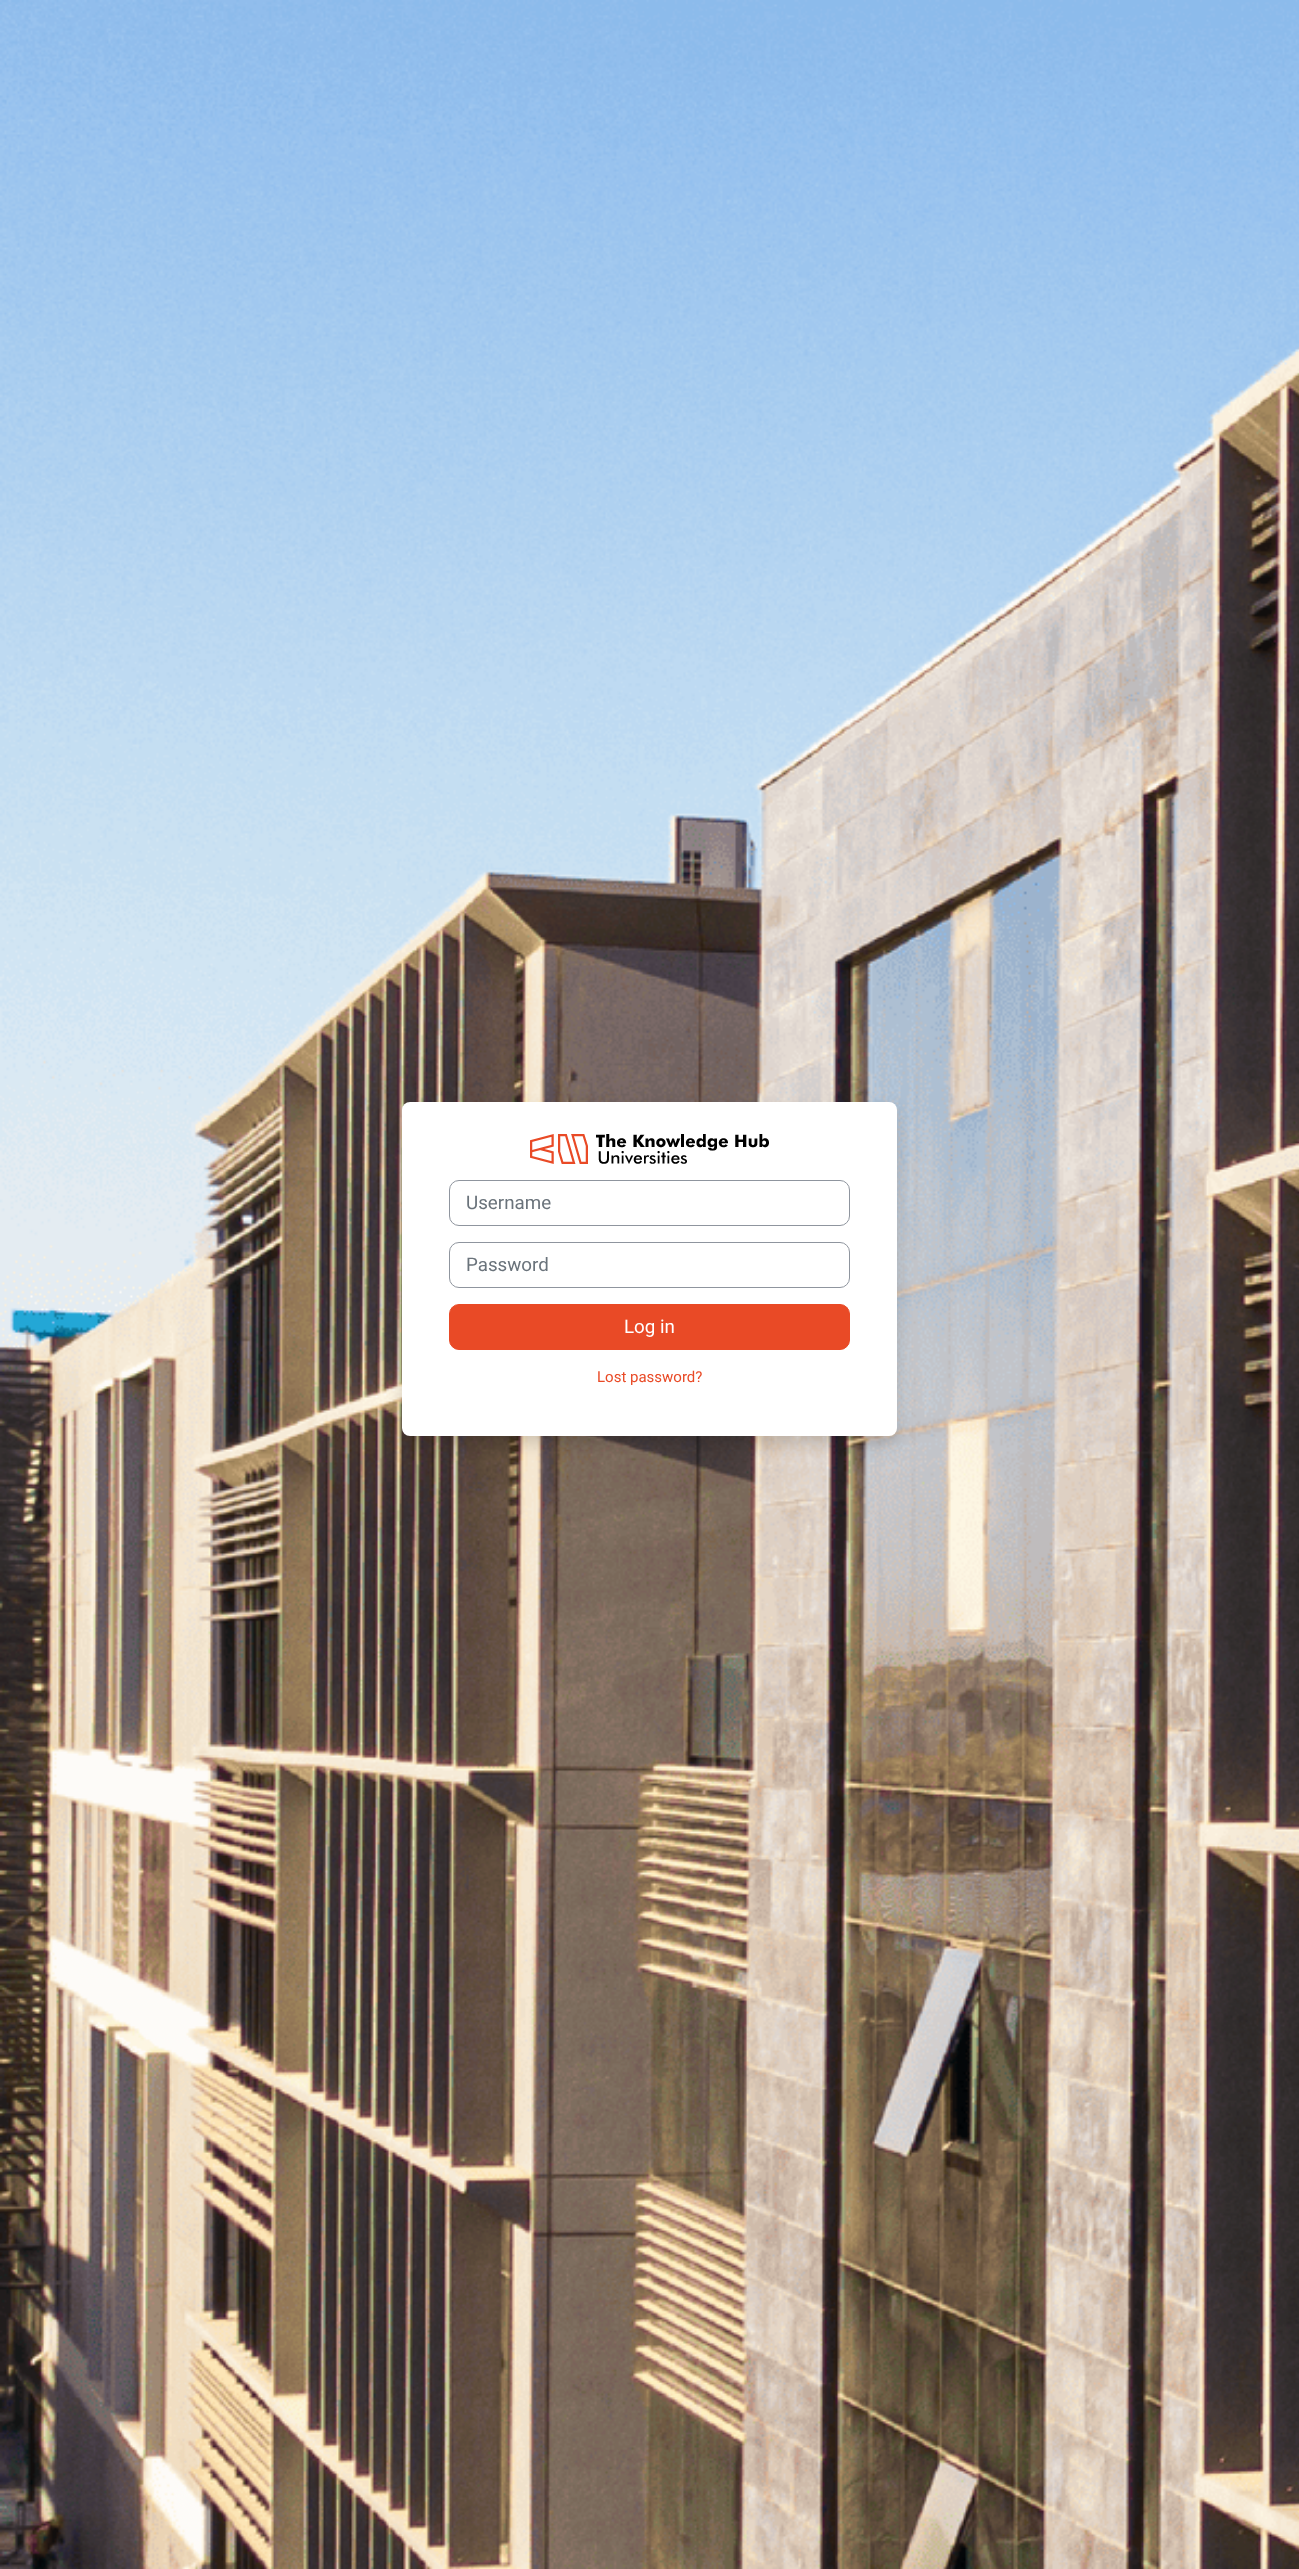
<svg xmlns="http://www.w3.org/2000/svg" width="1299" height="2569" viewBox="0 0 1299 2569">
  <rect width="100%" height="100%" fill="rgb(255,255,255)"/>
  <image x="0" y="0" width="1299" height="2569" href="pic1.png"/>
  <rect x="402" y="1110" width="495" height="334" rx="8" fill="rgba(0,0,0,0.15)" filter="blur(8px)"/>
  <rect x="402" y="1102" width="495" height="334" rx="8" fill="rgb(255,255,255)"/>
  <image x="530" y="1134" width="239" height="30" href="pic2.png"/>
  <rect x="449.5" y="1180.5" width="400" height="45" rx="9.5" fill="none" stroke="rgb(143,149,158)"/>
  <text x="466" y="1209" font-family="Roboto" font-size="18.75" fill="rgb(106,115,123)">Username</text>
  <rect x="449.5" y="1242.5" width="400" height="45" rx="9.5" fill="none" stroke="rgb(143,149,158)"/>
  <text x="466" y="1271" font-family="Roboto" font-size="18.75" fill="rgb(106,115,123)">Password</text>
  <rect x="449.5" y="1304.5" width="400" height="45" rx="9.5" fill="rgb(233,74,38)" stroke="rgb(233,74,38)"/>
  <text x="624" y="1333" font-family="Roboto" font-size="18.75" fill="rgb(255,255,255)">Log in</text>
  <text x="597" y="1382" font-family="Roboto" font-size="15" fill="rgb(233,74,38)">Lost password?</text>
</svg>
